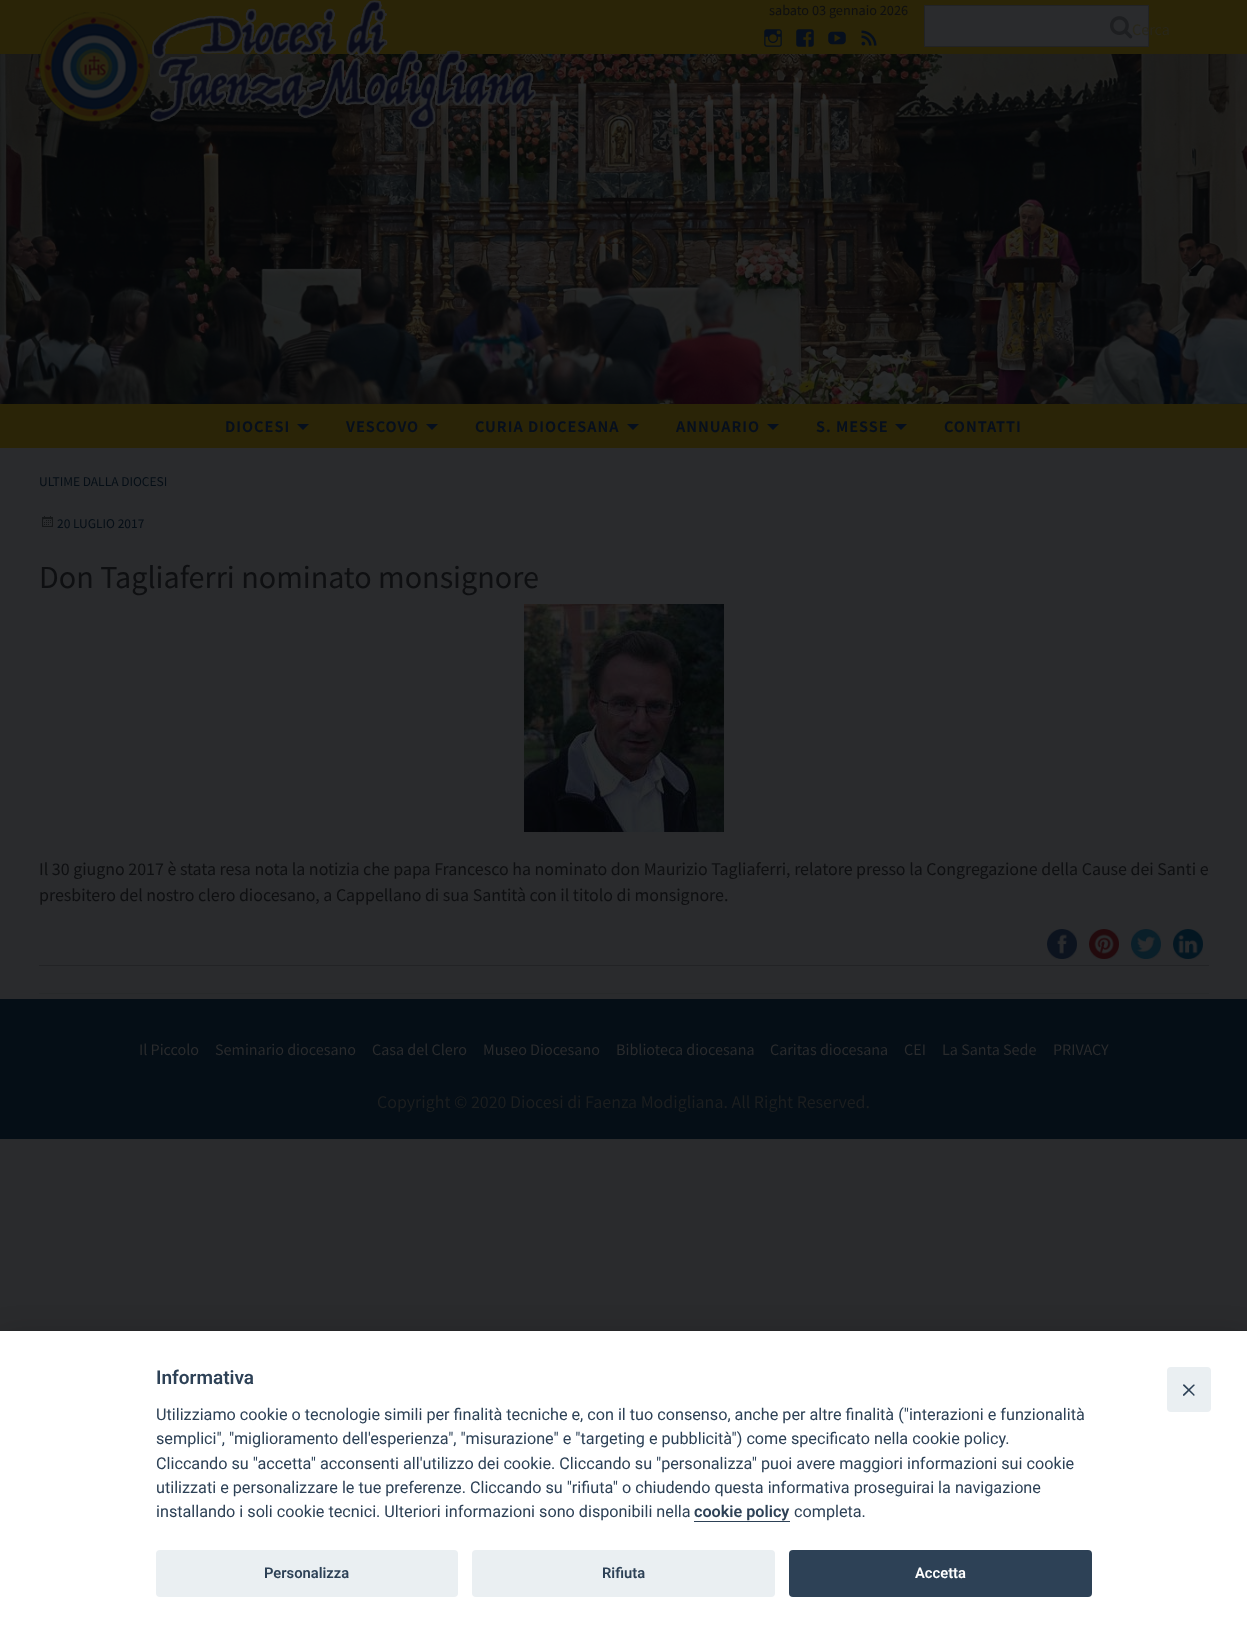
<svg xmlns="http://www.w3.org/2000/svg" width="1247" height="1633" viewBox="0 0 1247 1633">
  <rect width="100%" height="100%" fill="rgb(42,43,45)"/>
  <rect x="0" y="0" width="1247" height="54" fill="rgb(42,36,7)"/>
  <image x="0" y="54" width="1247" height="350" href="pic2.png"/>
  <image x="39" y="0" width="497" height="129" href="pic1.png"/>
  <text x="769" y="15" font-family="Noto Sans JP" font-size="12.75" fill="rgb(14,15,17)">sabato 03 gennaio 2026</text>
  <image x="764" y="29" width="18" height="18" href="pic3.png"/>
  <image x="796" y="29" width="18" height="18" href="pic4.png"/>
  <image x="828" y="31" width="18" height="14" href="pic5.png"/>
  <image x="861" y="30" width="16" height="16" href="pic6.png"/>
  <rect x="924.5" y="5.5" width="224" height="41" fill="rgb(42,43,45)" stroke="rgb(34,35,37)"/>
  <image x="1110" y="16" width="23" height="23" href="pic7.png"/>
  <text x="1132" y="35" font-family="Noto Sans JP" font-size="14.4" fill="rgb(41,39,26)">Cerca</text>
  <rect x="0" y="404" width="1247" height="44" fill="rgb(42,36,7)"/>
  <text x="225" y="432" font-family="Noto Sans JP" font-size="14.4" font-weight="bold" letter-spacing="1" fill="rgb(6,15,29)">DIOCESI</text>
  <path d="M297 424H309L303 430Z" fill="rgb(6,15,29)"/>
  <text x="346" y="432" font-family="Noto Sans JP" font-size="14.4" font-weight="bold" letter-spacing="1" fill="rgb(6,15,29)">VESCOVO</text>
  <path d="M426 424H438L432 430Z" fill="rgb(6,15,29)"/>
  <text x="475" y="432" font-family="Noto Sans JP" font-size="14.4" font-weight="bold" letter-spacing="1" fill="rgb(6,15,29)">CURIA DIOCESANA</text>
  <path d="M627 424H639L633 430Z" fill="rgb(6,15,29)"/>
  <text x="676" y="432" font-family="Noto Sans JP" font-size="14.4" font-weight="bold" letter-spacing="1" fill="rgb(6,15,29)">ANNUARIO</text>
  <path d="M767 424H779L773 430Z" fill="rgb(6,15,29)"/>
  <text x="816" y="432" font-family="Noto Sans JP" font-size="14.4" font-weight="bold" letter-spacing="1" fill="rgb(6,15,29)">S. MESSE</text>
  <path d="M895 424H907L901 430Z" fill="rgb(6,15,29)"/>
  <text x="944" y="432" font-family="Noto Sans JP" font-size="14.4" font-weight="bold" letter-spacing="1" fill="rgb(6,15,29)">CONTATTI</text>
  <rect x="39" y="993" width="1170" height="1" fill="rgb(39,41,42)"/>
  <text x="39" y="486" font-family="Noto Sans JP" font-size="12" fill="rgb(5,14,22)">ULTIME DALLA DIOCESI</text>
  <image x="42" y="516" width="11" height="11" href="pic8.png"/>
  <text x="57" y="528" font-family="Noto Sans JP" font-size="12" fill="rgb(5,14,22)">20 LUGLIO 2017</text>
  <text x="39" y="588" font-family="Noto Sans JP" font-size="28.75" fill="rgb(14,15,17)">Don Tagliaferri nominato monsignore</text>
  <image x="524" y="604" width="200" height="228" href="pic9.png"/>
  <g font-family="Noto Sans JP" font-size="16" fill="rgb(14,15,17)">
    <text>
      <tspan x="39" y="875">Il 30 giugno 2017 è stata resa nota la notizia che papa Francesco ha nominato don Maurizio Tagliaferri, relatore presso la Congregazione della Cause dei Santi e</tspan>
      <tspan x="39" y="901">presbitero del nostro clero diocesano, a Cappellano di sua Santità con il titolo di monsignore.</tspan>
    </text>
  </g>
  <image x="1047" y="929" width="30" height="30" href="pic10.png"/>
  <image x="1089" y="929" width="30" height="30" href="pic11.png"/>
  <image x="1131" y="929" width="30" height="30" href="pic12.png"/>
  <image x="1173" y="929" width="30" height="30" href="pic13.png"/>
  <rect x="39" y="965" width="1170" height="1" fill="rgb(34,35,37)"/>
  <rect x="0" y="999" width="1247" height="140" fill="rgb(5,14,22)"/>
  <g font-family="Noto Sans JP" font-size="14.4" fill="rgb(42,43,45)">
    <text x="139" y="1055">Il Piccolo</text>
    <text x="215" y="1055">Seminario diocesano</text>
    <text x="372" y="1055">Casa del Clero</text>
    <text x="483" y="1055">Museo Diocesano</text>
    <text x="616" y="1055">Biblioteca diocesana</text>
    <text x="770" y="1055">Caritas diocesana</text>
    <text x="904" y="1055">CEI</text>
    <text x="942" y="1055">La Santa Sede</text>
    <text x="1053" y="1055">PRIVACY</text>
  </g>
  <text x="377" y="1108" font-family="Noto Sans JP" font-size="16" fill="rgb(28,30,31)">Copyright © 2020 Diocesi di Faenza Modigliana. All Right Reserved.</text>
  <rect x="0" y="1342" width="1247" height="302" fill="rgba(2,2,3,0.28)" filter="blur(17px)"/>
  <rect x="0" y="1331" width="1247" height="302" fill="rgb(255,255,255)"/>
  <text x="156" y="1384" font-family="Roboto" font-size="19" font-weight="600" fill="rgb(45,65,86)">Informativa</text>
  <g font-family="Roboto" font-size="16.2" fill="rgb(45,65,86)">
    <text>
      <tspan x="156" y="1420">Utilizziamo cookie o tecnologie simili per finalità tecniche e, con il tuo consenso, anche per altre finalità ("interazioni e funzionalità</tspan>
      <tspan x="156" y="1444">semplici", "miglioramento dell'esperienza", "misurazione" e "targeting e pubblicità") come specificato nella cookie policy.</tspan>
      <tspan x="156" y="1469">Cliccando su "accetta" acconsenti all'utilizzo dei cookie. Cliccando su "personalizza" puoi avere maggiori informazioni sui cookie</tspan>
      <tspan x="156" y="1493">utilizzati e personalizzare le tue preferenze. Cliccando su "rifiuta" o chiudendo questa informativa proseguirai la navigazione</tspan>
      <tspan x="156" y="1517">installando i soli cookie tecnici. Ulteriori informazioni sono disponibili nella</tspan>
    </text>
  </g>
  <text x="694" y="1517" font-family="Roboto" font-size="16.2" font-weight="600" fill="rgb(45,65,86)">cookie policy</text>
  <rect x="694" y="1521" width="96" height="1" fill="rgb(45,65,86)"/>
  <text x="794" y="1517" font-family="Roboto" font-size="16.2" fill="rgb(45,65,86)">completa.</text>
  <rect x="156" y="1550" width="302" height="47" rx="4" fill="rgb(234,239,242)"/>
  <text x="264" y="1578" font-family="Roboto" font-size="14.75" font-weight="600" fill="rgb(45,65,86)">Personalizza</text>
  <rect x="472" y="1550" width="303" height="47" rx="4" fill="rgb(234,239,242)"/>
  <text x="602" y="1578" font-family="Roboto" font-size="14.75" font-weight="600" fill="rgb(45,65,86)">Rifiuta</text>
  <rect x="789" y="1550" width="303" height="47" rx="4" fill="rgb(45,65,86)"/>
  <text x="915" y="1578" font-family="Roboto" font-size="14.75" font-weight="600" fill="rgb(255,255,255)">Accetta</text>
  <rect x="1167" y="1367" width="44" height="45" rx="4" fill="rgb(234,239,242)"/>
  <path d="M1194.5 1384.5C1194.5 1385 1194.5 1385.5 1194.5 1385.5L1184.5 1395.5C1184 1396 1183.5 1396 1183 1395.5C1183 1395.5 1183 1395 1183 1394.5L1193.5 1384.5C1193.5 1384.5 1194 1384.5 1194.5 1384.5Z" fill="rgb(45,65,86)"/>
  <path d="M1183 1384.5C1183.5 1384.5 1184 1384.5 1184.5 1384.5L1194.5 1394.5C1194.5 1395 1194.5 1395.5 1194.5 1395.5C1194 1396 1193.5 1396 1193.5 1395.5L1183 1385.5C1183 1385.5 1183 1385 1183 1384.5Z" fill="rgb(45,65,86)"/>
</svg>
